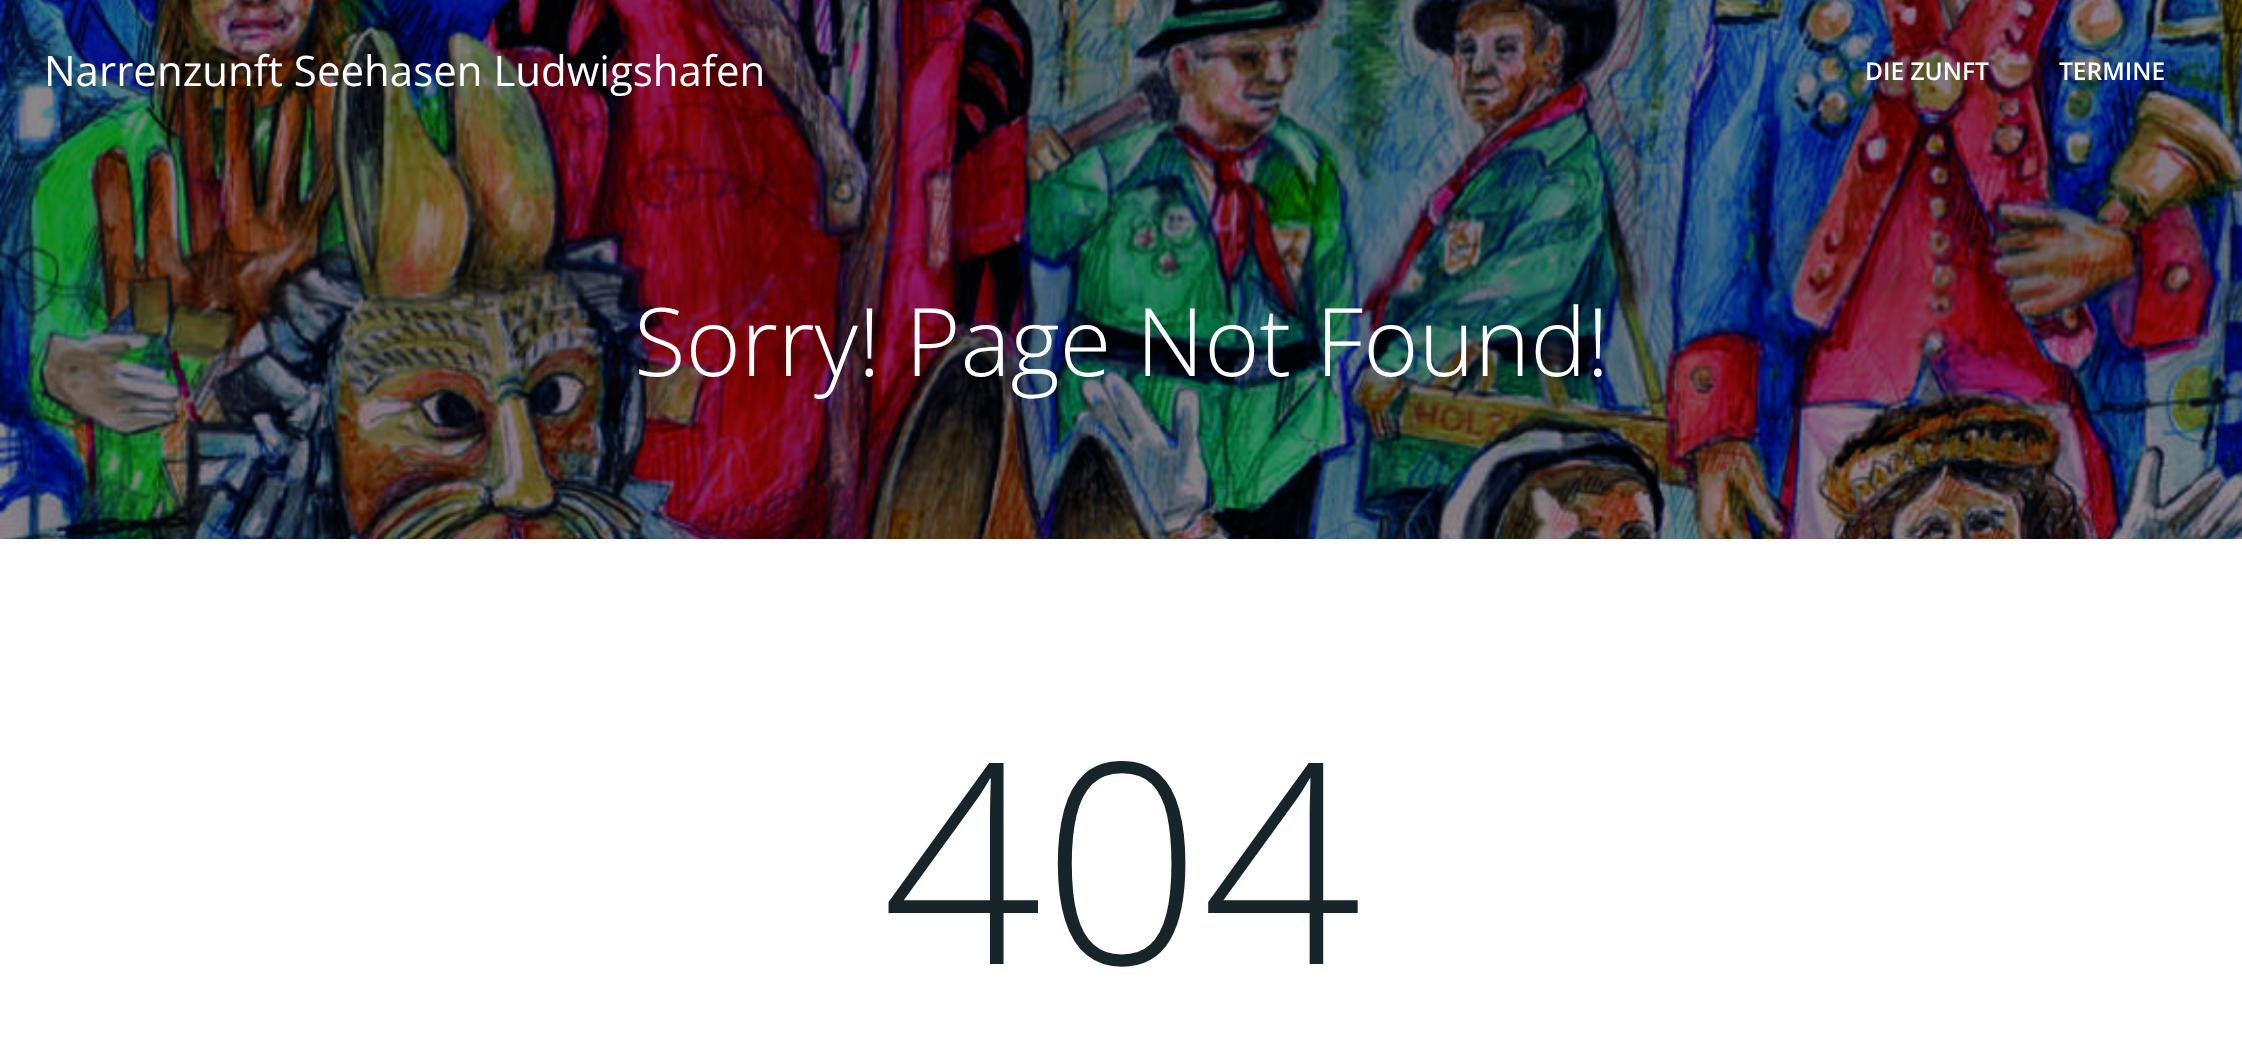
<svg xmlns="http://www.w3.org/2000/svg" width="2242" height="1058" viewBox="0 0 2242 1058">
  <rect width="100%" height="100%" fill="rgb(255,255,255)"/>
  <image x="0" y="0" width="2242" height="539" href="pic1.png"/>
  <text x="44" y="86" font-family="Open Sans" font-size="42" fill="rgb(255,255,255)">Narrenzunft Seehasen Ludwigshafen</text>
  <g font-family="Open Sans" font-size="24.5" font-weight="600" fill="rgb(255,255,255)">
    <text x="1865" y="80">DIE ZUNFT</text>
    <text x="2059" y="80">TERMINE</text>
  </g>
  <text x="634" y="376" font-family="Open Sans" font-size="94.5" font-weight="300" fill="rgb(255,255,255)">Sorry! Page Not Found!</text>
  <text x="882" y="964" font-family="Open Sans" font-size="280" font-weight="300" fill="rgb(23,37,42)">404</text>
</svg>
